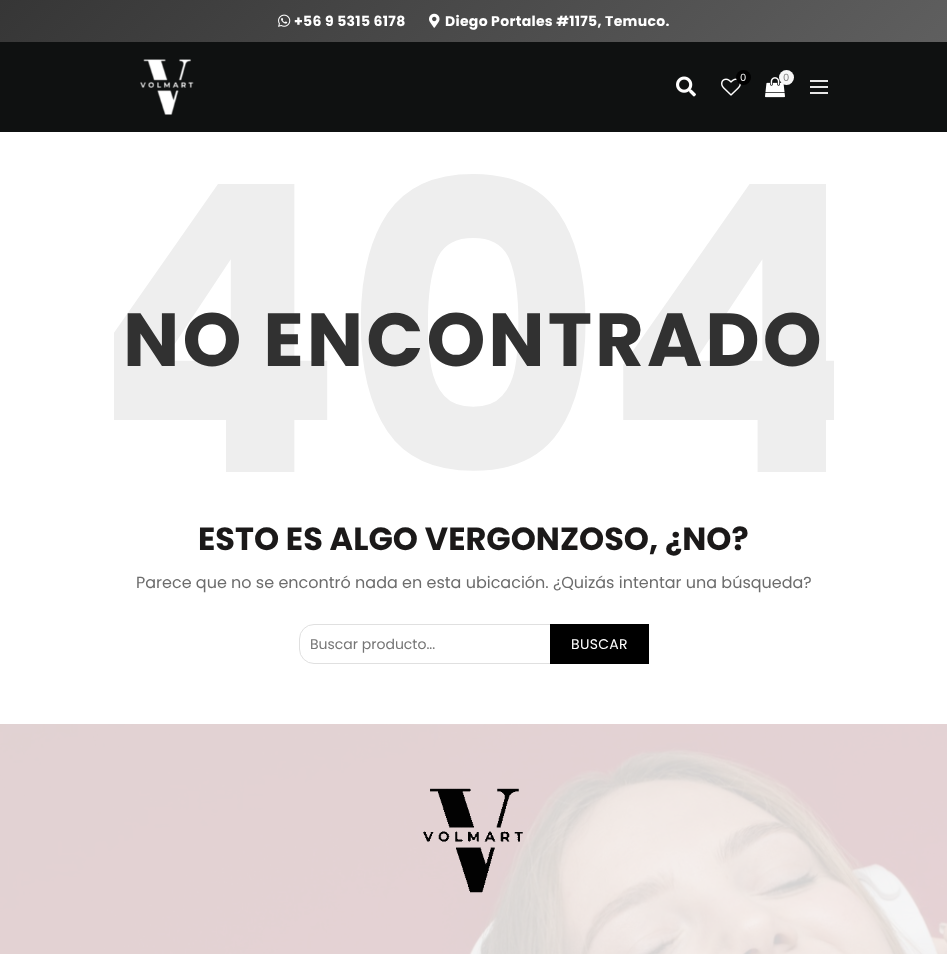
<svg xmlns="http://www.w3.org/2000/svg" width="947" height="954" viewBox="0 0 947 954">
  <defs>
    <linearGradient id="g1" gradientUnits="userSpaceOnUse" x1="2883" y1="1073" x2="905" y2="-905"><stop offset="0" stop-color="rgb(0,0,0)"/><stop offset="0.33" stop-color="rgb(0,0,0)"/><stop offset="0.67" stop-color="rgb(108,108,108)"/><stop offset="1" stop-color="rgb(54,54,54)"/></linearGradient>
    <clipPath id="clip1"><rect x="114" y="172" width="720" height="335"/></clipPath>
  </defs>
  <rect width="100%" height="100%" fill="rgb(255,255,255)"/>
  <rect x="0" y="0" width="947" height="42" fill="url(#g1)"/>
  <image x="278" y="14" width="13" height="13" href="pic1.png"/>
  <text x="294" y="26" font-family="Poppins" font-size="14" font-weight="bold" letter-spacing="0.3" fill="rgb(255,255,255)">+56 9 5315 6178</text>
  <image x="429" y="13" width="11" height="15" href="pic2.png"/>
  <text x="445" y="26" font-family="Poppins" font-size="14" font-weight="bold" letter-spacing="0.3" fill="rgb(255,255,255)">Diego Portales #1175, Temuco.</text>
  <rect x="0" y="42" width="947" height="90" fill="rgb(15,17,17)"/>
  <image x="140" y="59" width="54" height="56" href="pic3.png"/>
  <image x="676" y="76" width="20" height="21" href="pic4.png"/>
  <image x="721" y="78" width="20" height="18" href="pic5.png"/>
  <circle cx="743.5" cy="77.5" r="7.5" fill="rgb(0,0,0)"/>
  <text x="740" y="81" font-family="Poppins" font-size="10" fill="rgb(255,255,255)">0</text>
  <image x="765" y="77" width="20" height="21" href="pic6.png"/>
  <circle cx="786.5" cy="77.5" r="7.5" fill="rgb(247,247,247)"/>
  <text x="783" y="81" font-family="Poppins" font-size="10" fill="rgb(126,126,126)">0</text>
  <rect x="810" y="86" width="18" height="2" fill="rgb(231,231,231)"/>
  <rect x="810" y="80" width="18" height="2" fill="rgb(231,231,231)"/>
  <rect x="810" y="92" width="18" height="2" fill="rgb(231,231,231)"/>
  <g clip-path="url(#clip1)">
    <text x="72" y="472" font-family="Poppins" font-size="400" font-weight="bold" fill="rgb(238,238,238)">404</text>
  </g>
  <text x="123" y="366" font-family="Poppins" font-size="75" font-weight="bold" letter-spacing="3" fill="rgb(49,49,49)">NO ENCONTRADO</text>
  <text x="198" y="550" font-family="Poppins" font-size="32" font-weight="bold" fill="rgb(27,25,25)">ESTO ES ALGO VERGONZOSO, ¿NO?</text>
  <text x="136" y="588" font-family="Poppins" font-size="16" fill="rgb(108,108,108)">Parece que no se encontró nada en esta ubicación. ¿Quizás intentar una búsqueda?</text>
  <rect x="299.5" y="624.5" width="349" height="39" rx="14.5" fill="none" stroke="rgb(224,224,224)"/>
  <text x="310" y="649" font-family="Poppins" font-size="14" fill="rgb(117,117,117)">Buscar producto...</text>
  <rect x="550" y="624" width="99" height="40" fill="rgb(0,0,0)"/>
  <text x="571" y="649" font-family="Poppins" font-size="14" letter-spacing="0.3" fill="rgb(255,255,255)">BUSCAR</text>
  <image x="0" y="724" width="947" height="230" href="pic7.png"/>
  <image x="423" y="788" width="100" height="105" href="pic8.png"/>
</svg>
